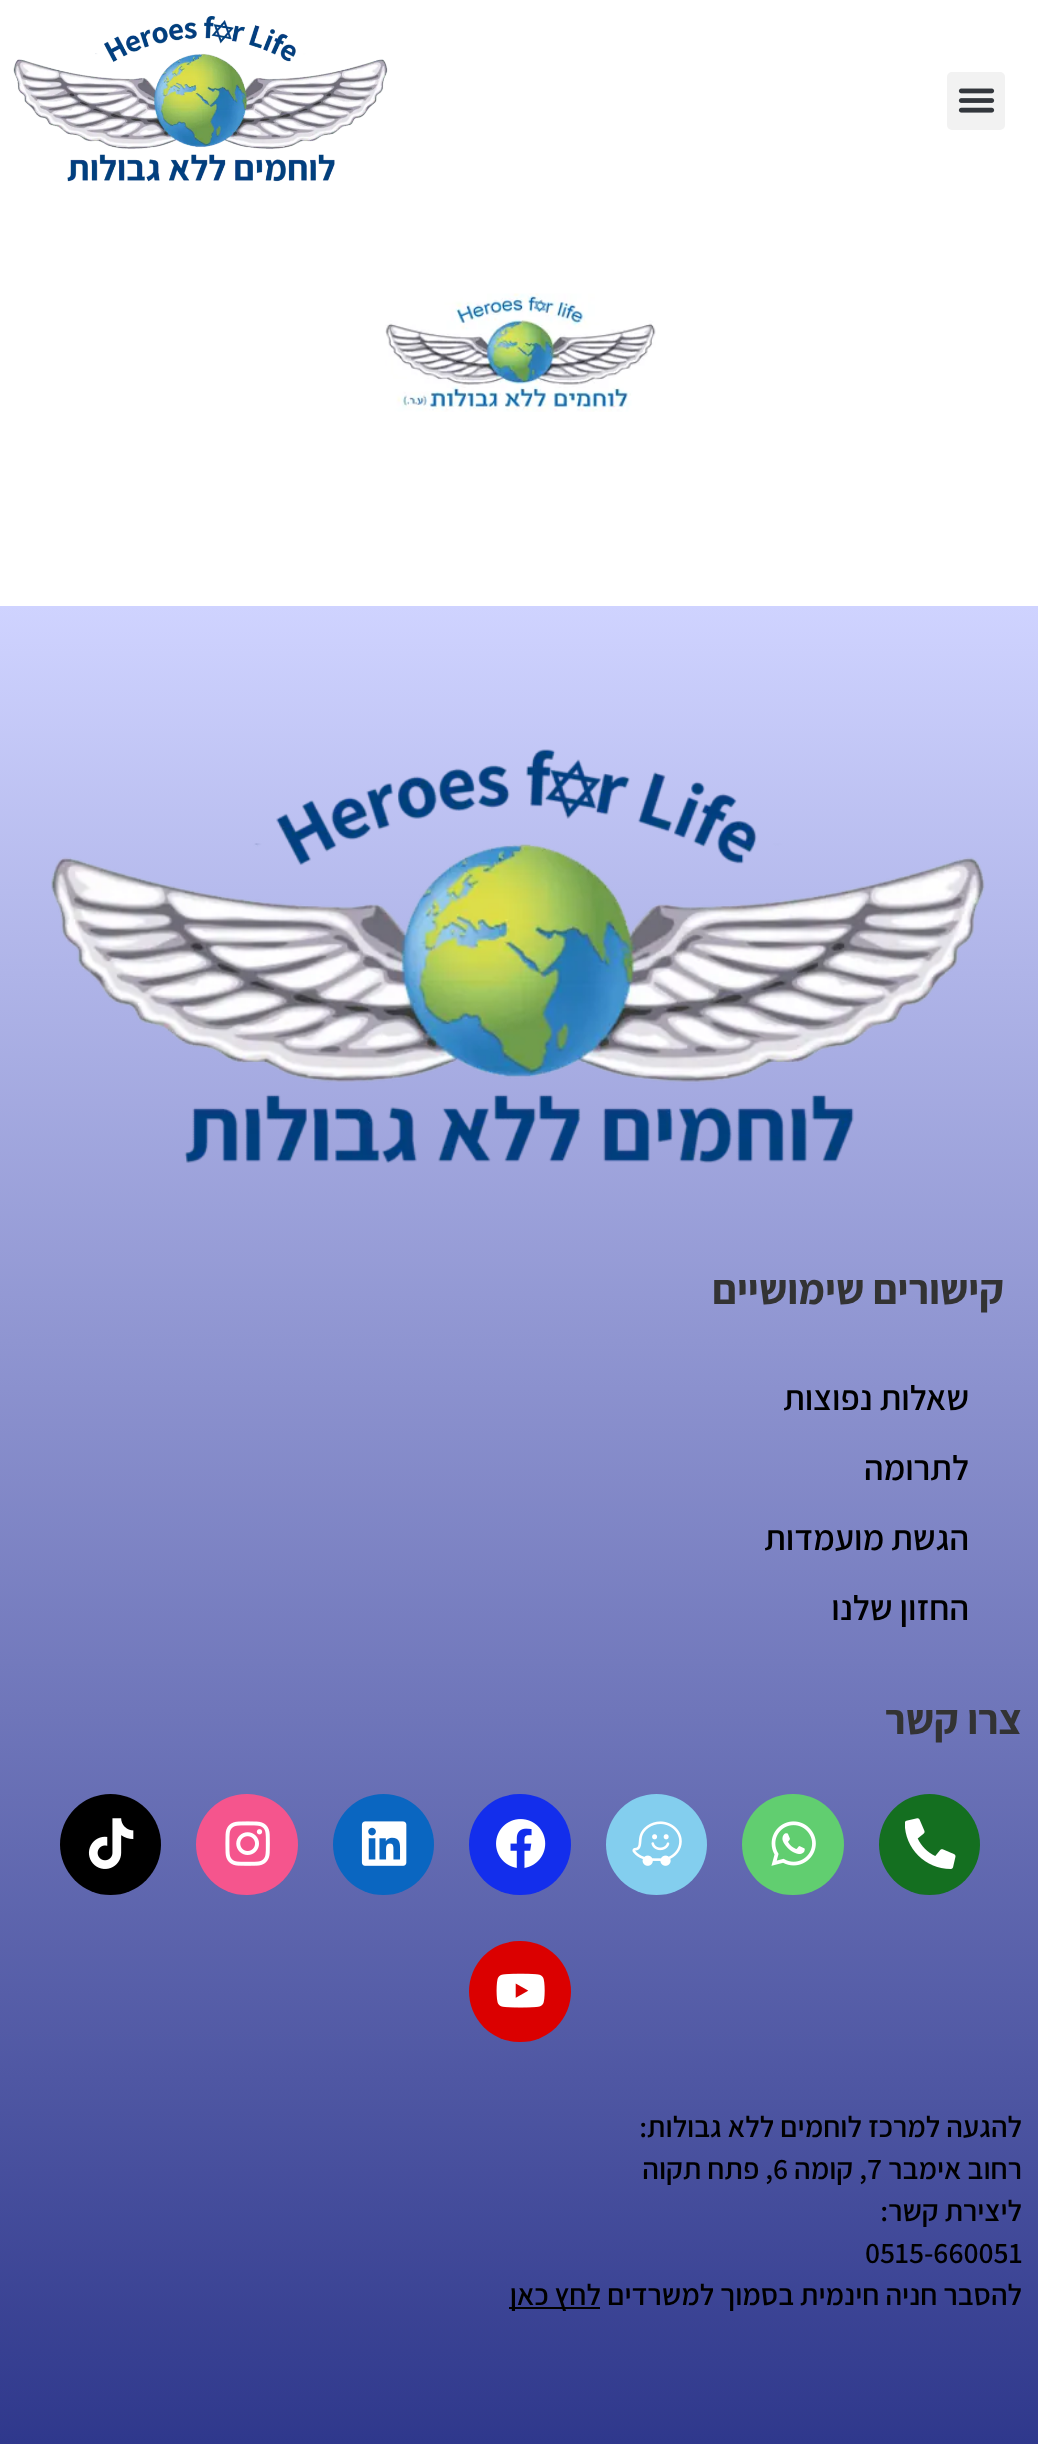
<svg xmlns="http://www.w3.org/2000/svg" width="1038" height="2444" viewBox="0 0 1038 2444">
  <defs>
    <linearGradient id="g1" gradientUnits="userSpaceOnUse" x1="520" y1="606" x2="520" y2="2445"><stop offset="0" stop-color="rgb(207,211,255)"/><stop offset="1" stop-color="rgb(47,56,140)"/></linearGradient>
  </defs>
  <rect width="100%" height="100%" fill="rgb(255,255,255)"/>
  <rect x="947" y="72" width="58" height="58" rx="5" fill="rgb(242,242,242)"/>
  <image x="958" y="88" width="37" height="25" href="pic1.png"/>
  <image x="13" y="16" width="375" height="166" href="pic2.png"/>
  <image x="385" y="293" width="271" height="119" href="pic3.png"/>
  <rect x="0" y="606" width="1038" height="1838" fill="url(#g1)"/>
  <image x="51" y="749" width="934" height="414" href="pic4.png"/>
  <text x="1004" y="1304" font-family="Assistant" font-size="42" font-weight="bold" direction="rtl" fill="rgb(51,51,51)">קישורים שימושיים</text>
  <g font-family="Assistant" font-size="35" font-weight="600" direction="rtl" fill="rgb(0,0,0)">
    <text x="969" y="1410">שאלות נפוצות</text>
    <text x="969" y="1480">לתרומה</text>
    <text x="969" y="1550">הגשת מועמדות</text>
    <text x="969" y="1620">החזון שלנו</text>
  </g>
  <text x="1022" y="1734" font-family="Assistant" font-size="42" font-weight="bold" direction="rtl" fill="rgb(51,51,51)">צרו קשר</text>
  <circle cx="929.5" cy="1844.5" r="50.5" fill="rgb(20,111,32)"/>
  <image x="905" y="1818" width="51" height="51" href="pic5.png"/>
  <rect x="742" y="1794" width="102" height="101" rx="50.5" fill="rgb(97,206,112)"/>
  <image x="771" y="1821" width="45" height="45" href="pic6.png"/>
  <circle cx="656.5" cy="1844.5" r="50.5" fill="rgb(131,206,238)"/>
  <image x="632" y="1821" width="50" height="45" href="pic7.png"/>
  <rect x="469" y="1794" width="102" height="101" rx="50.5" fill="rgb(19,46,236)"/>
  <image x="496" y="1819" width="50" height="49" href="pic8.png"/>
  <circle cx="383.5" cy="1844.5" r="50.5" fill="rgb(10,102,193)"/>
  <image x="361" y="1821" width="46" height="45" href="pic9.png"/>
  <rect x="196" y="1794" width="102" height="101" rx="50.5" fill="rgb(245,85,141)"/>
  <image x="225" y="1821" width="45" height="45" href="pic10.png"/>
  <circle cx="110.5" cy="1844.5" r="50.5" fill="rgb(0,0,0)"/>
  <image x="88" y="1818" width="46" height="51" href="pic11.png"/>
  <rect x="469" y="1941" width="102" height="101" rx="50.5" fill="rgb(219,0,0)"/>
  <image x="496" y="1973" width="49" height="35" href="pic12.png"/>
  <g font-family="Assistant" font-size="29.75" font-weight="600" direction="rtl" fill="rgb(0,0,0)">
    <text>
      <tspan x="1022" y="2137">להגעה למרכז לוחמים ללא גבולות:</tspan>
      <tspan x="1022" y="2179">רחוב אימבר</tspan>
    </text>
  </g>
  <text x="867" y="2179" font-family="Assistant" font-size="29.75" font-weight="600" fill="rgb(0,0,0)">7</text>
  <text x="867" y="2179" font-family="Assistant" font-size="29.75" font-weight="600" direction="rtl" fill="rgb(0,0,0)">, קומה</text>
  <text x="773" y="2179" font-family="Assistant" font-size="29.75" font-weight="600" fill="rgb(0,0,0)">6</text>
  <g font-family="Assistant" font-size="29.75" font-weight="600" direction="rtl" fill="rgb(0,0,0)">
    <text x="773" y="2179">, פתח תקוה</text>
    <text x="1022" y="2221">ליצירת קשר:</text>
  </g>
  <text x="865" y="2263" font-family="Assistant" font-size="29.75" font-weight="600" fill="rgb(0,0,0)">0515-660051</text>
  <text x="1022" y="2305" font-family="Assistant" font-size="29.75" font-weight="600" direction="rtl" fill="rgb(0,0,0)">להסבר חניה חינמית בסמוך למשרדים</text>
  <rect x="509" y="2307" width="91" height="2" fill="rgb(0,0,0)"/>
  <text x="601" y="2305" font-family="Assistant" font-size="29.75" font-weight="600" direction="rtl" fill="rgb(0,0,0)">לחץ כאן</text>
</svg>
